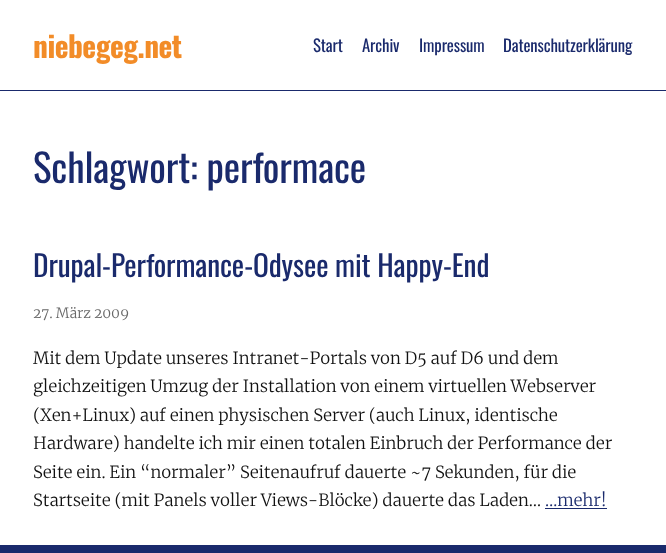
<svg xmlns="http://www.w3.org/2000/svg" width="666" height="553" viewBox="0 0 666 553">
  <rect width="100%" height="100%" fill="rgb(255,255,255)"/>
  <rect x="0" y="90" width="666" height="1" fill="rgb(26,42,108)"/>
  <text x="33" y="58" font-family="Oswald" font-size="29.4" font-weight="bold" letter-spacing="-0.5" fill="rgb(242,140,40)">niebegeg.net</text>
  <g font-family="Oswald" font-size="16.7" letter-spacing="-0.1" fill="rgb(26,42,108)">
    <text x="313" y="52">Start</text>
    <text x="362" y="52">Archiv</text>
    <text x="419" y="52">Impressum</text>
    <text x="503" y="52">Datenschutzerklärung</text>
  </g>
  <text x="33" y="183" font-family="Oswald" font-size="39" letter-spacing="-0.1" fill="rgb(26,42,108)">Schlagwort: performace</text>
  <text x="33" y="277" font-family="Oswald" font-size="29.4" letter-spacing="-0.1" fill="rgb(26,42,108)">Drupal-Performance-Odysee mit Happy-End</text>
  <text x="33" y="318" font-family="Merriweather" font-size="14" font-weight="300" letter-spacing="-0.1" fill="rgb(104,104,104)">27. März 2009</text>
  <g font-family="Merriweather" font-size="16.7" font-weight="300" letter-spacing="-0.1" fill="rgb(17,17,17)">
    <text>
      <tspan x="33" y="364">Mit dem Update unseres Intranet-Portals von D5 auf D6 und dem</tspan>
      <tspan x="33" y="392">gleichzeitigen Umzug der Installation von einem virtuellen Webserver</tspan>
      <tspan x="33" y="421">(Xen+Linux) auf einen physischen Server (auch Linux, identische</tspan>
      <tspan x="33" y="449">Hardware) handelte ich mir einen totalen Einbruch der Performance der</tspan>
      <tspan x="33" y="478">Seite ein. Ein “normaler” Seitenaufruf dauerte ~7 Sekunden, für die</tspan>
      <tspan x="33" y="506">Startseite (mit Panels voller Views-Blöcke) dauerte das Laden…</tspan>
    </text>
  </g>
  <text x="545" y="506" font-family="Merriweather" font-size="16.7" font-weight="300" letter-spacing="-0.1" fill="rgb(26,42,108)">…mehr!</text>
  <rect x="545" y="508" width="62" height="1" fill="rgb(26,42,108)"/>
  <rect x="0" y="545" width="666" height="8" fill="rgb(26,42,108)"/>
</svg>
